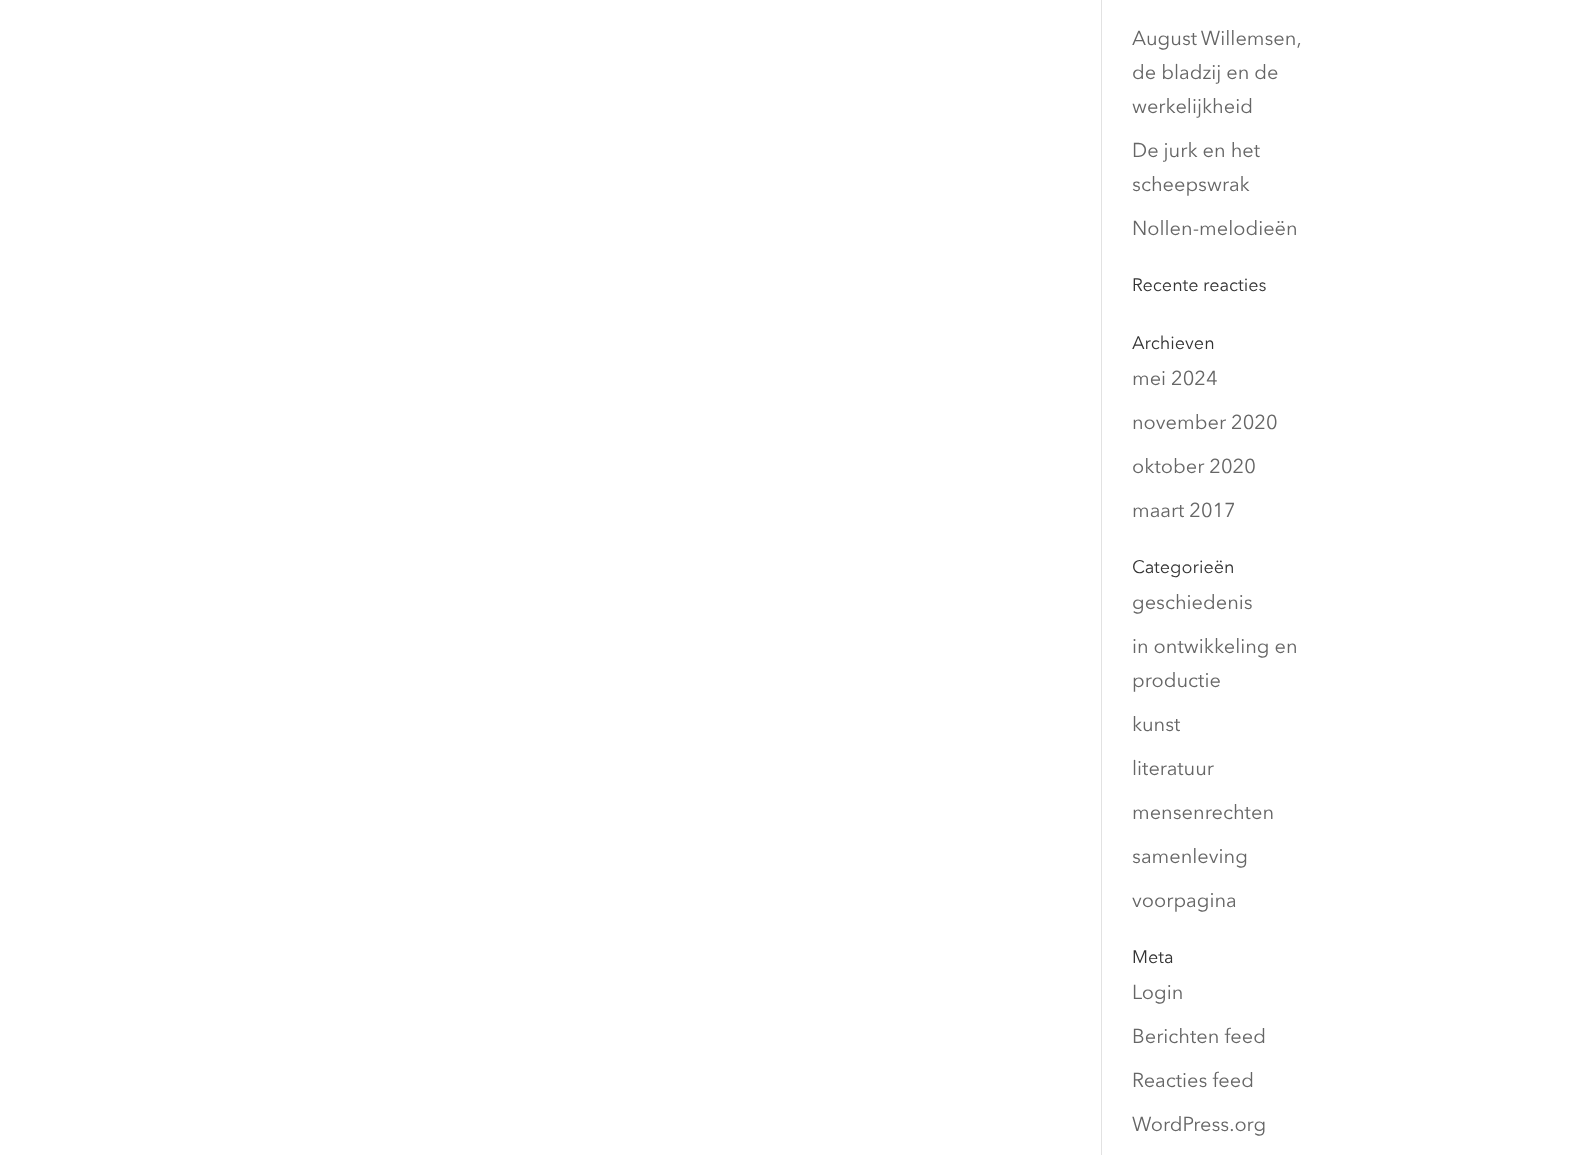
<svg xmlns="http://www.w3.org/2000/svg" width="1574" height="1155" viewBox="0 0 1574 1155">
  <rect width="100%" height="100%" fill="rgb(255,255,255)"/>
  <rect x="1101" y="0" width="1" height="1155" fill="rgb(226,226,226)"/>
  <g font-family="Avenir Next" font-size="20" fill="rgb(102,102,102)">
    <text>
      <tspan x="1132" y="45" word-spacing="-1">August Willemsen,</tspan>
      <tspan x="1132" y="79">de bladzij en de</tspan>
      <tspan x="1132" y="113">werkelijkheid</tspan>
    </text>
    <text>
      <tspan x="1132" y="157">De jurk en het</tspan>
      <tspan x="1132" y="191">scheepswrak</tspan>
    </text>
    <text x="1132" y="235">Nollen-melodieën</text>
  </g>
  <g font-family="Avenir Next" font-size="18" fill="rgb(51,51,51)">
    <text x="1132" y="291">Recente reacties</text>
    <text x="1132" y="349">Archieven</text>
  </g>
  <g font-family="Avenir Next" font-size="20" fill="rgb(102,102,102)">
    <text x="1132" y="385">mei 2024</text>
    <text x="1132" y="429">november 2020</text>
    <text x="1132" y="473">oktober 2020</text>
    <text x="1132" y="517">maart 2017</text>
  </g>
  <text x="1132" y="573" font-family="Avenir Next" font-size="18" fill="rgb(51,51,51)">Categorieën</text>
  <g font-family="Avenir Next" font-size="20" fill="rgb(102,102,102)">
    <text x="1132" y="609">geschiedenis</text>
    <text>
      <tspan x="1132" y="653">in ontwikkeling en</tspan>
      <tspan x="1132" y="687">productie</tspan>
    </text>
    <text x="1132" y="731">kunst</text>
    <text x="1132" y="775">literatuur</text>
    <text x="1132" y="819">mensenrechten</text>
    <text x="1132" y="863">samenleving</text>
    <text x="1132" y="907">voorpagina</text>
  </g>
  <text x="1132" y="963" font-family="Avenir Next" font-size="18" fill="rgb(51,51,51)">Meta</text>
  <g font-family="Avenir Next" font-size="20" fill="rgb(102,102,102)">
    <text x="1132" y="999">Login</text>
    <text x="1132" y="1043">Berichten feed</text>
    <text x="1132" y="1087">Reacties feed</text>
    <text x="1132" y="1131">WordPress.org</text>
  </g>
</svg>
